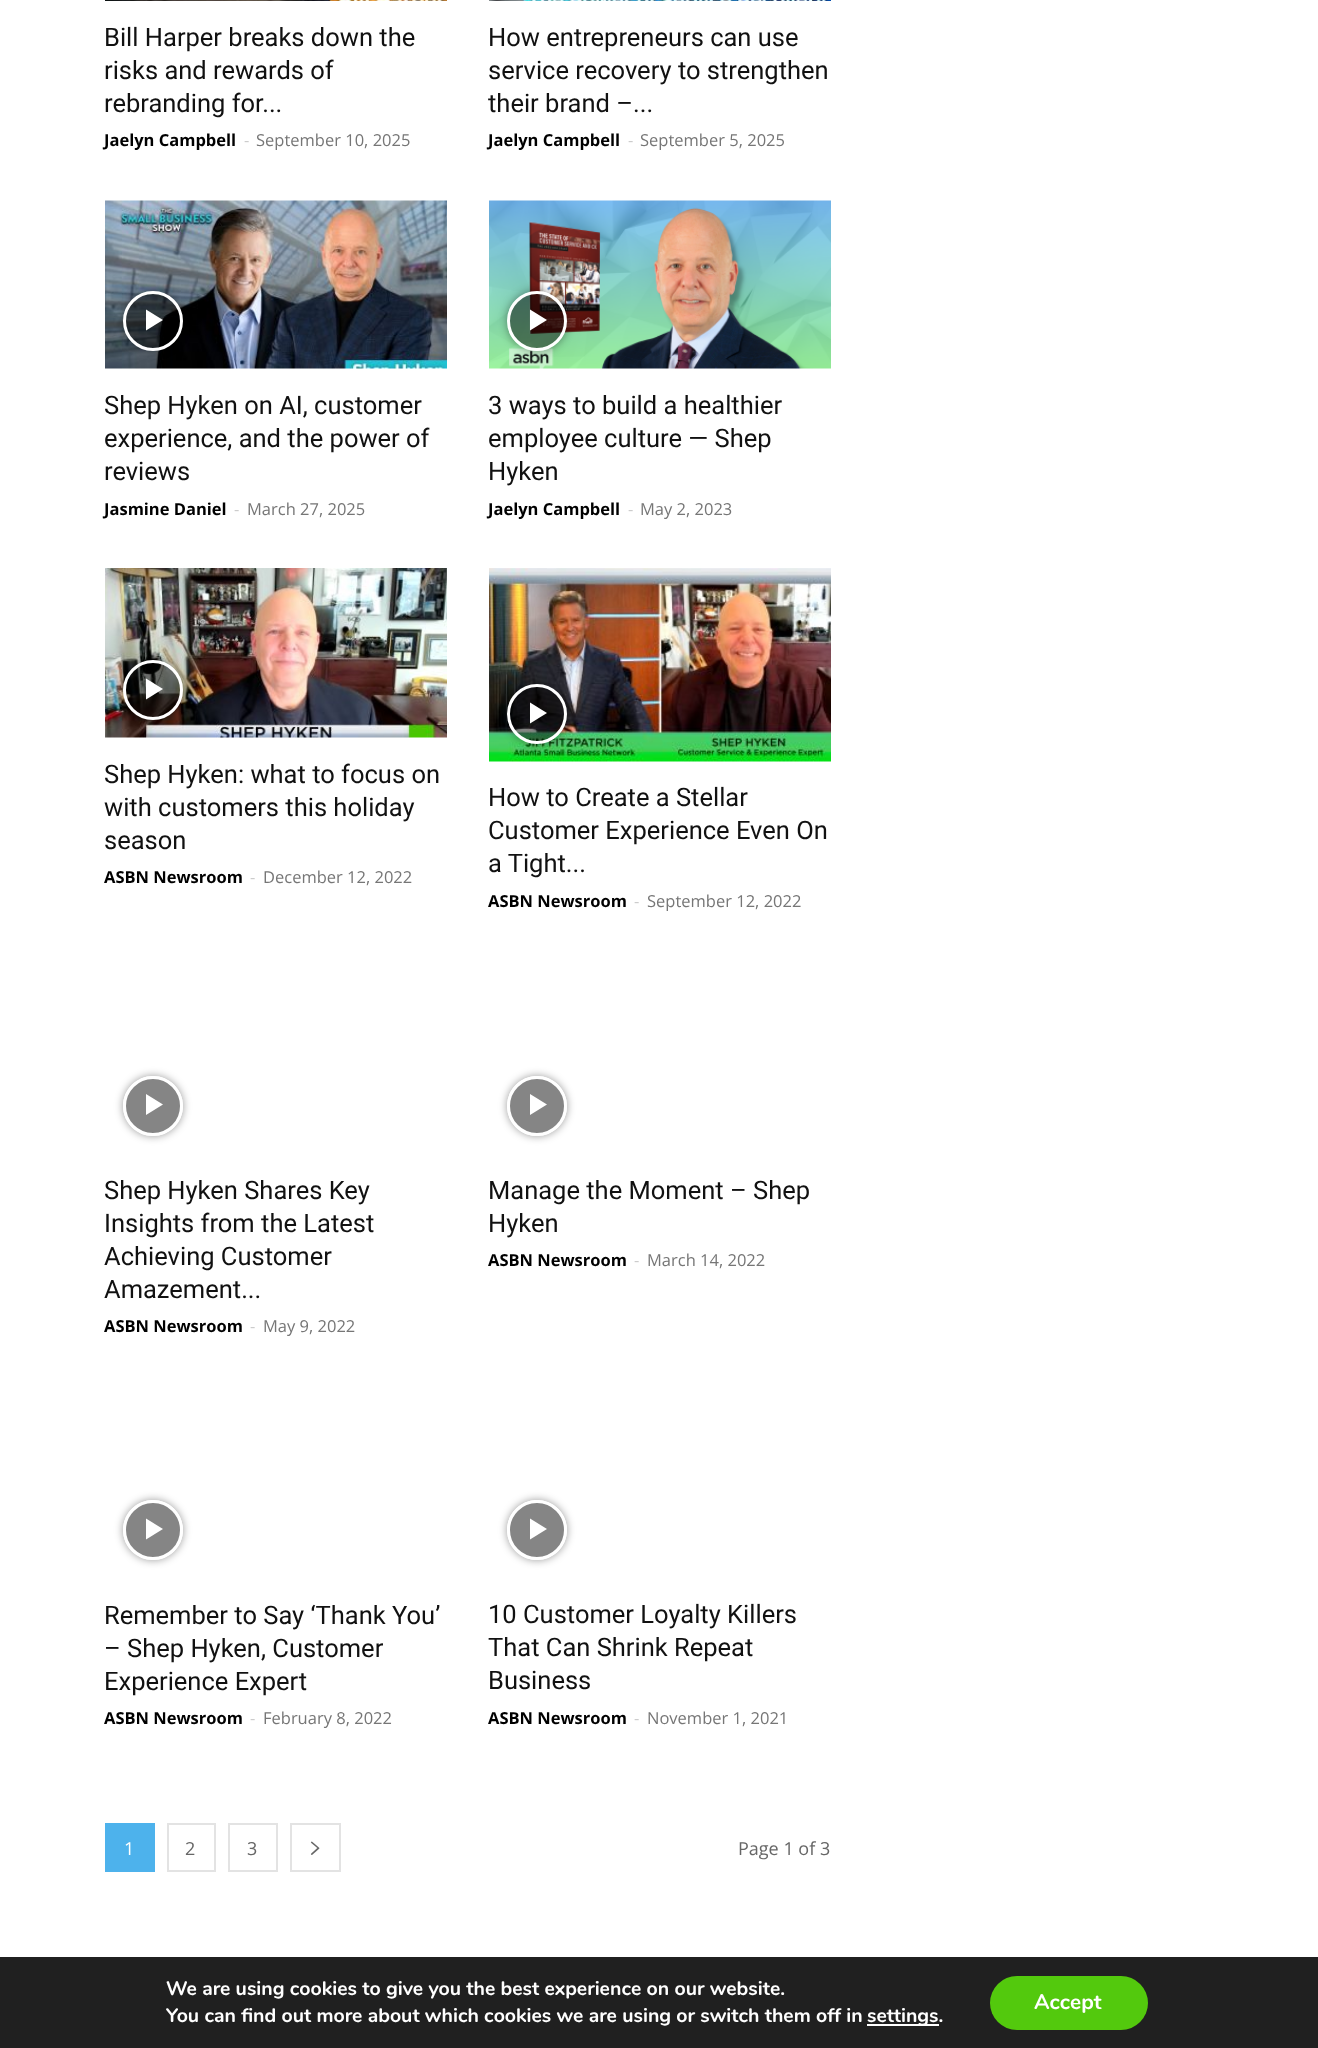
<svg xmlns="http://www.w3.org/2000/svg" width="1318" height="2048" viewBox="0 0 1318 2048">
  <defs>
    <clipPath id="clip1"><path d="M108 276H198V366H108ZM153 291C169.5 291 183 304.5 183 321C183 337.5 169.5 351 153 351C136.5 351 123 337.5 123 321C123 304.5 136.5 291 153 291Z" clip-rule="evenodd"/></clipPath>
    <clipPath id="clip2"><path d="M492 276H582V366H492ZM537 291C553.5 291 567 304.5 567 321C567 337.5 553.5 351 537 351C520.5 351 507 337.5 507 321C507 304.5 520.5 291 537 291Z" clip-rule="evenodd"/></clipPath>
    <clipPath id="clip3"><path d="M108 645H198V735H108ZM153 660C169.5 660 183 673.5 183 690C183 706.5 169.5 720 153 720C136.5 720 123 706.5 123 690C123 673.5 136.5 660 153 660Z" clip-rule="evenodd"/></clipPath>
    <clipPath id="clip4"><path d="M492 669H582V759H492ZM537 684C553.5 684 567 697.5 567 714C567 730.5 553.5 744 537 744C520.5 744 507 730.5 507 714C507 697.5 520.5 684 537 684Z" clip-rule="evenodd"/></clipPath>
    <clipPath id="clip5"><path d="M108 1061H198V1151H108ZM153 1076C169.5 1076 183 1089.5 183 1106C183 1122.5 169.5 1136 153 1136C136.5 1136 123 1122.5 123 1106C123 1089.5 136.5 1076 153 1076Z" clip-rule="evenodd"/></clipPath>
    <clipPath id="clip6"><path d="M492 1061H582V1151H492ZM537 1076C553.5 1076 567 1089.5 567 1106C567 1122.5 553.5 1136 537 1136C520.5 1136 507 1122.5 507 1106C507 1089.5 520.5 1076 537 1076Z" clip-rule="evenodd"/></clipPath>
    <clipPath id="clip7"><path d="M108 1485H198V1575H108ZM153 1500C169.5 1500 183 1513.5 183 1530C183 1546.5 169.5 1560 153 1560C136.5 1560 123 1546.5 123 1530C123 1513.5 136.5 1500 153 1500Z" clip-rule="evenodd"/></clipPath>
    <clipPath id="clip8"><path d="M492 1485H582V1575H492ZM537 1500C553.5 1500 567 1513.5 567 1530C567 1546.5 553.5 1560 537 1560C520.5 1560 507 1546.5 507 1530C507 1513.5 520.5 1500 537 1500Z" clip-rule="evenodd"/></clipPath>
  </defs>
  <rect width="100%" height="100%" fill="rgb(255,255,255)"/>
  <image x="105" y="0" width="342" height="1" href="pic1.png"/>
  <g font-family="Roboto" font-size="25.5" fill="rgb(17,17,17)">
    <text>
      <tspan x="104" y="46">Bill Harper breaks down the</tspan>
      <tspan x="104" y="79">risks and rewards of</tspan>
      <tspan x="104" y="112">rebranding for...</tspan>
    </text>
  </g>
  <text x="104" y="146" font-family="Open Sans" font-size="16.5" font-weight="bold" fill="rgb(0,0,0)">Jaelyn Campbell</text>
  <text x="244" y="146" font-family="Open Sans" font-size="16.5" fill="rgb(204,204,204)">-</text>
  <text x="256" y="146" font-family="Open Sans" font-size="16.5" fill="rgb(118,118,118)">September 10, 2025</text>
  <image x="489" y="0" width="342" height="1" href="pic2.png"/>
  <g font-family="Roboto" font-size="25.5" fill="rgb(17,17,17)">
    <text>
      <tspan x="488" y="46">How entrepreneurs can use</tspan>
      <tspan x="488" y="79">service recovery to strengthen</tspan>
      <tspan x="488" y="112">their brand –...</tspan>
    </text>
  </g>
  <text x="488" y="146" font-family="Open Sans" font-size="16.5" font-weight="bold" fill="rgb(0,0,0)">Jaelyn Campbell</text>
  <text x="628" y="146" font-family="Open Sans" font-size="16.5" fill="rgb(204,204,204)">-</text>
  <text x="640" y="146" font-family="Open Sans" font-size="16.5" fill="rgb(118,118,118)">September 5, 2025</text>
  <image x="105" y="200" width="342" height="169" href="pic3.png"/>
  <g clip-path="url(#clip1)">
    <rect x="123" y="291" width="60" height="60" rx="30" fill="rgba(0,0,0,0.4)" filter="blur(4.5px)"/>
  </g>
  <circle cx="153" cy="321" r="28.5" fill="rgba(0,0,0,0.48)" stroke="rgb(255,255,255)" stroke-width="3"/>
  <path d="M146 309.5V330.5L163 320Z" fill="rgb(255,255,255)"/>
  <g font-family="Roboto" font-size="25.5" fill="rgb(17,17,17)">
    <text>
      <tspan x="104" y="414">Shep Hyken on AI, customer</tspan>
      <tspan x="104" y="447">experience, and the power of</tspan>
      <tspan x="104" y="480">reviews</tspan>
    </text>
  </g>
  <text x="104" y="515" font-family="Open Sans" font-size="16.5" font-weight="bold" fill="rgb(0,0,0)">Jasmine Daniel</text>
  <text x="234" y="515" font-family="Open Sans" font-size="16.5" fill="rgb(204,204,204)">-</text>
  <text x="247" y="515" font-family="Open Sans" font-size="16.5" fill="rgb(118,118,118)">March 27, 2025</text>
  <image x="489" y="200" width="342" height="169" href="pic4.png"/>
  <g clip-path="url(#clip2)">
    <rect x="507" y="291" width="60" height="60" rx="30" fill="rgba(0,0,0,0.4)" filter="blur(4.5px)"/>
  </g>
  <circle cx="537" cy="321" r="28.5" fill="rgba(0,0,0,0.48)" stroke="rgb(255,255,255)" stroke-width="3"/>
  <path d="M530 309.5V330.5L547 320Z" fill="rgb(255,255,255)"/>
  <g font-family="Roboto" font-size="25.5" fill="rgb(17,17,17)">
    <text>
      <tspan x="488" y="414">3 ways to build a healthier</tspan>
      <tspan x="488" y="447">employee culture — Shep</tspan>
      <tspan x="488" y="480">Hyken</tspan>
    </text>
  </g>
  <text x="488" y="515" font-family="Open Sans" font-size="16.5" font-weight="bold" fill="rgb(0,0,0)">Jaelyn Campbell</text>
  <text x="628" y="515" font-family="Open Sans" font-size="16.5" fill="rgb(204,204,204)">-</text>
  <text x="640" y="515" font-family="Open Sans" font-size="16.5" fill="rgb(118,118,118)">May 2, 2023</text>
  <image x="105" y="568" width="342" height="170" href="pic5.png"/>
  <g clip-path="url(#clip3)">
    <rect x="123" y="660" width="60" height="60" rx="30" fill="rgba(0,0,0,0.4)" filter="blur(4.5px)"/>
  </g>
  <circle cx="153" cy="690" r="28.5" fill="rgba(0,0,0,0.48)" stroke="rgb(255,255,255)" stroke-width="3"/>
  <path d="M146 678.5V699.5L163 689Z" fill="rgb(255,255,255)"/>
  <g font-family="Roboto" font-size="25.5" fill="rgb(17,17,17)">
    <text>
      <tspan x="104" y="783">Shep Hyken: what to focus on</tspan>
      <tspan x="104" y="816">with customers this holiday</tspan>
      <tspan x="104" y="849">season</tspan>
    </text>
  </g>
  <text x="104" y="883" font-family="Open Sans" font-size="16.5" font-weight="bold" fill="rgb(0,0,0)">ASBN Newsroom</text>
  <text x="250" y="883" font-family="Open Sans" font-size="16.5" fill="rgb(204,204,204)">-</text>
  <text x="263" y="883" font-family="Open Sans" font-size="16.5" fill="rgb(118,118,118)">December 12, 2022</text>
  <image x="489" y="568" width="342" height="194" href="pic6.png"/>
  <g clip-path="url(#clip4)">
    <rect x="507" y="684" width="60" height="60" rx="30" fill="rgba(0,0,0,0.4)" filter="blur(4.5px)"/>
  </g>
  <circle cx="537" cy="714" r="28.5" fill="rgba(0,0,0,0.48)" stroke="rgb(255,255,255)" stroke-width="3"/>
  <path d="M530 702.5V723.5L547 713Z" fill="rgb(255,255,255)"/>
  <g font-family="Roboto" font-size="25.5" fill="rgb(17,17,17)">
    <text>
      <tspan x="488" y="806">How to Create a Stellar</tspan>
      <tspan x="488" y="839">Customer Experience Even On</tspan>
      <tspan x="488" y="872">a Tight...</tspan>
    </text>
  </g>
  <text x="488" y="907" font-family="Open Sans" font-size="16.5" font-weight="bold" fill="rgb(0,0,0)">ASBN Newsroom</text>
  <text x="634" y="907" font-family="Open Sans" font-size="16.5" fill="rgb(204,204,204)">-</text>
  <text x="647" y="907" font-family="Open Sans" font-size="16.5" fill="rgb(118,118,118)">September 12, 2022</text>
  <g clip-path="url(#clip5)">
    <rect x="123" y="1076" width="60" height="60" rx="30" fill="rgba(0,0,0,0.4)" filter="blur(4.5px)"/>
  </g>
  <circle cx="153" cy="1106" r="28.5" fill="rgba(0,0,0,0.48)" stroke="rgb(255,255,255)" stroke-width="3"/>
  <path d="M146 1094V1115L163 1104.5Z" fill="rgb(255,255,255)"/>
  <g font-family="Roboto" font-size="25.5" fill="rgb(17,17,17)">
    <text>
      <tspan x="104" y="1199">Shep Hyken Shares Key</tspan>
      <tspan x="104" y="1232">Insights from the Latest</tspan>
      <tspan x="104" y="1265">Achieving Customer</tspan>
      <tspan x="104" y="1298">Amazement...</tspan>
    </text>
  </g>
  <text x="104" y="1332" font-family="Open Sans" font-size="16.5" font-weight="bold" fill="rgb(0,0,0)">ASBN Newsroom</text>
  <text x="250" y="1332" font-family="Open Sans" font-size="16.5" fill="rgb(204,204,204)">-</text>
  <text x="263" y="1332" font-family="Open Sans" font-size="16.5" fill="rgb(118,118,118)">May 9, 2022</text>
  <g clip-path="url(#clip6)">
    <rect x="507" y="1076" width="60" height="60" rx="30" fill="rgba(0,0,0,0.4)" filter="blur(4.5px)"/>
  </g>
  <circle cx="537" cy="1106" r="28.5" fill="rgba(0,0,0,0.48)" stroke="rgb(255,255,255)" stroke-width="3"/>
  <path d="M530 1094V1115L547 1104.5Z" fill="rgb(255,255,255)"/>
  <g font-family="Roboto" font-size="25.5" fill="rgb(17,17,17)">
    <text>
      <tspan x="488" y="1199">Manage the Moment – Shep</tspan>
      <tspan x="488" y="1232">Hyken</tspan>
    </text>
  </g>
  <text x="488" y="1266" font-family="Open Sans" font-size="16.5" font-weight="bold" fill="rgb(0,0,0)">ASBN Newsroom</text>
  <text x="634" y="1266" font-family="Open Sans" font-size="16.5" fill="rgb(204,204,204)">-</text>
  <text x="647" y="1266" font-family="Open Sans" font-size="16.5" fill="rgb(118,118,118)">March 14, 2022</text>
  <g clip-path="url(#clip7)">
    <rect x="123" y="1500" width="60" height="60" rx="30" fill="rgba(0,0,0,0.4)" filter="blur(4.5px)"/>
  </g>
  <circle cx="153" cy="1530" r="28.5" fill="rgba(0,0,0,0.48)" stroke="rgb(255,255,255)" stroke-width="3"/>
  <path d="M146 1518.5V1539.5L163 1529Z" fill="rgb(255,255,255)"/>
  <g font-family="Roboto" font-size="25.5" fill="rgb(17,17,17)">
    <text>
      <tspan x="104" y="1624">Remember to Say ‘Thank You’</tspan>
      <tspan x="104" y="1657">– Shep Hyken, Customer</tspan>
      <tspan x="104" y="1690">Experience Expert</tspan>
    </text>
  </g>
  <text x="104" y="1724" font-family="Open Sans" font-size="16.5" font-weight="bold" fill="rgb(0,0,0)">ASBN Newsroom</text>
  <text x="250" y="1724" font-family="Open Sans" font-size="16.5" fill="rgb(204,204,204)">-</text>
  <text x="263" y="1724" font-family="Open Sans" font-size="16.5" fill="rgb(118,118,118)">February 8, 2022</text>
  <g clip-path="url(#clip8)">
    <rect x="507" y="1500" width="60" height="60" rx="30" fill="rgba(0,0,0,0.4)" filter="blur(4.5px)"/>
  </g>
  <circle cx="537" cy="1530" r="28.5" fill="rgba(0,0,0,0.48)" stroke="rgb(255,255,255)" stroke-width="3"/>
  <path d="M530 1518.5V1539.5L547 1529Z" fill="rgb(255,255,255)"/>
  <g font-family="Roboto" font-size="25.5" fill="rgb(17,17,17)">
    <text>
      <tspan x="488" y="1623">10 Customer Loyalty Killers</tspan>
      <tspan x="488" y="1656">That Can Shrink Repeat</tspan>
      <tspan x="488" y="1689">Business</tspan>
    </text>
  </g>
  <text x="488" y="1724" font-family="Open Sans" font-size="16.5" font-weight="bold" fill="rgb(0,0,0)">ASBN Newsroom</text>
  <text x="634" y="1724" font-family="Open Sans" font-size="16.5" fill="rgb(204,204,204)">-</text>
  <text x="647" y="1724" font-family="Open Sans" font-size="16.5" fill="rgb(118,118,118)">November 1, 2021</text>
  <rect x="105" y="1823" width="50" height="49" fill="rgb(77,178,236)"/>
  <text x="124" y="1855" font-family="Open Sans" font-size="18" fill="rgb(255,255,255)">1</text>
  <rect x="168" y="1824" width="47" height="47" fill="none" stroke="rgb(227,227,227)" stroke-width="2"/>
  <text x="185" y="1855" font-family="Open Sans" font-size="18" fill="rgb(102,102,102)">2</text>
  <rect x="229" y="1824" width="48" height="47" fill="none" stroke="rgb(227,227,227)" stroke-width="2"/>
  <text x="247" y="1855" font-family="Open Sans" font-size="18" fill="rgb(102,102,102)">3</text>
  <rect x="291" y="1824" width="49" height="47" fill="none" stroke="rgb(227,227,227)" stroke-width="2"/>
  <image x="310" y="1841" width="10" height="14" href="pic7.png"/>
  <text x="738" y="1855" font-family="Open Sans" font-size="18" fill="rgb(102,102,102)">Page 1 of 3</text>
  <rect x="0" y="1957" width="1318" height="91" fill="rgb(32,32,32)"/>
  <g font-family="Nunito" font-size="19.5" font-weight="bold" fill="rgb(255,255,255)">
    <text>
      <tspan x="166" y="1995">We are using cookies to give you the best experience on our website.</tspan>
      <tspan x="166" y="2022">You can find out more about which cookies we are using or switch them off in</tspan>
    </text>
  </g>
  <rect x="867" y="2024" width="72" height="2" fill="rgb(255,255,255)"/>
  <text x="867" y="2022" font-family="Nunito" font-size="19.5" font-weight="bold" fill="rgb(255,255,255)">settings.</text>
  <rect x="990" y="1976" width="158" height="54" rx="27" fill="rgb(83,201,13)"/>
  <text x="1034" y="2009" font-family="Nunito" font-size="21" font-weight="bold" fill="rgb(255,255,255)">Accept</text>
</svg>
